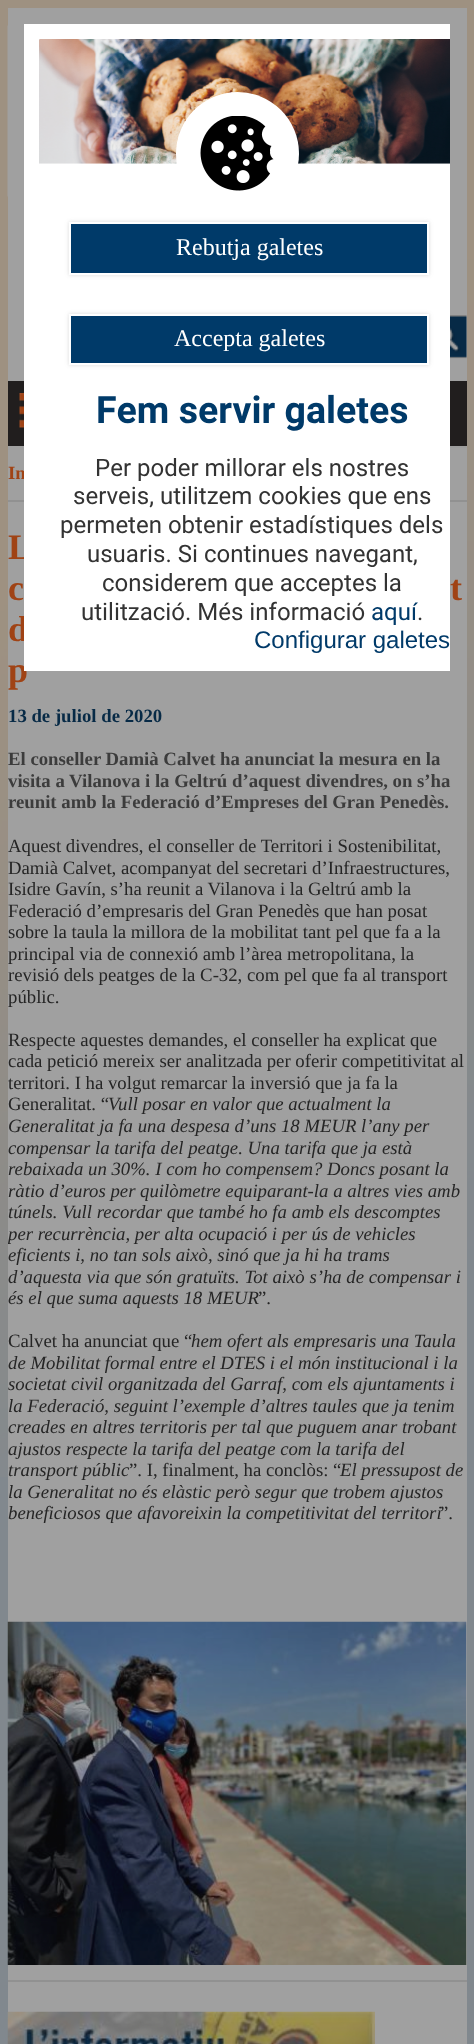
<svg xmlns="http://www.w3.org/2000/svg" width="474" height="2044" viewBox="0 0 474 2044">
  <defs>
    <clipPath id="clip1"><rect x="8" y="521" width="459" height="1026"/></clipPath>
  </defs>
  <rect width="100%" height="100%" fill="rgb(129,136,142)"/>
  <image x="0" y="0" width="474" height="1477" href="pic1.png"/>
  <rect x="8" y="8" width="459" height="2036" fill="rgb(160,160,160)"/>
  <image x="16" y="446" width="451" height="2" href="pic6.png"/>
  <rect x="8" y="381" width="459" height="65" fill="rgb(33,30,30)"/>
  <rect x="8" y="500" width="459" height="2" fill="rgb(145,145,145)"/>
  <text x="8" y="479" font-family="Liberation Serif" font-size="18.75" font-weight="bold" fill="rgb(160,67,21)">In</text>
  <g font-family="Liberation Serif" font-size="36" font-weight="bold" fill="rgb(160,67,21)">
    <text x="8" y="559">L</text>
    <text>
      <tspan x="8" y="641">d</tspan>
      <tspan x="8" y="682">p</tspan>
    </text>
  </g>
  <rect x="24" y="24" width="426" height="647" fill="rgb(255,255,255)"/>
  <image x="39" y="39" width="411" height="125" href="pic2.png"/>
  <circle cx="237.5" cy="153.5" r="61.5" fill="rgb(255,255,255)"/>
  <image x="200" y="116" width="74" height="75" href="pic3.png"/>
  <rect x="69" y="222" width="360" height="53" fill="rgba(68,68,68,0.2)" filter="blur(2px)"/>
  <rect x="70" y="223" width="358" height="51" fill="rgb(0,58,105)" stroke="rgb(255,255,255)" stroke-width="2"/>
  <text x="176" y="255" font-family="Liberation Serif" font-size="24" fill="rgb(255,255,255)">Rebutja galetes</text>
  <rect x="69" y="314" width="360" height="51" fill="rgba(68,68,68,0.2)" filter="blur(2px)"/>
  <rect x="70" y="315" width="358" height="49" fill="rgb(0,58,105)" stroke="rgb(255,255,255)" stroke-width="2"/>
  <text x="174" y="346" font-family="Liberation Serif" font-size="24" fill="rgb(255,255,255)">Accepta galetes</text>
  <text x="96" y="423" font-family="Heebo" font-size="37.5" font-weight="bold" fill="rgb(0,58,105)">Fem servir galetes</text>
  <g font-family="Heebo" font-size="24" fill="rgb(51,51,51)">
    <text x="95" y="476">Per poder millorar els nostres</text>
    <text x="73" y="504">serveis, utilitzem cookies que ens</text>
    <text x="60" y="533">permeten obtenir estadístiques dels</text>
    <text x="87" y="562">usuaris. Si continues navegant,</text>
    <text x="102" y="591">considerem que acceptes la</text>
    <text x="81" y="620">utilització. Més informació</text>
  </g>
  <text x="371" y="620" font-family="Heebo" font-size="24" fill="rgb(0,58,105)">aquí</text>
  <text x="417" y="620" font-family="Heebo" font-size="24" fill="rgb(51,51,51)">.</text>
  <text x="254" y="648" font-family="Liberation Sans" font-size="24" fill="rgb(0,58,105)">Configurar galetes</text>
  <image x="7" y="25" width="17" height="172" href="pic4.png"/>
  <image x="450" y="315" width="17" height="44" href="pic5.png"/>
  <image x="19" y="393" width="5" height="35" href="pic7.png"/>
  <g font-family="Liberation Serif" font-size="36" font-weight="bold" fill="rgb(160,67,21)">
    <text x="8" y="600">c</text>
    <text x="450" y="600">t</text>
  </g>
  <text x="8" y="722" font-family="Liberation Serif" font-size="18.75" font-weight="bold" fill="rgb(7,42,70)">13 de juliol de 2020</text>
  <g font-family="Liberation Serif" font-size="18.75" font-weight="bold" fill="rgb(60,60,60)">
    <text>
      <tspan x="8" y="765">El conseller Damià Calvet ha anunciat la mesura en la</tspan>
      <tspan x="8" y="787">visita a Vilanova i la Geltrú d’aquest divendres, on s’ha</tspan>
      <tspan x="8" y="808">reunit amb la Federació d’Empreses del Gran Penedès.</tspan>
    </text>
  </g>
  <g font-family="Liberation Serif" font-size="18.75" fill="rgb(37,37,37)">
    <text>
      <tspan x="8" y="852">Aquest divendres, el conseller de Territori i Sostenibilitat,</tspan>
      <tspan x="8" y="874">Damià Calvet, acompanyat del secretari d’Infraestructures,</tspan>
      <tspan x="8" y="895">Isidre Gavín, s’ha reunit a Vilanova i la Geltrú amb la</tspan>
      <tspan x="8" y="917">Federació d’empresaris del Gran Penedès que han posat</tspan>
      <tspan x="8" y="938">sobre la taula la millora de la mobilitat tant pel que fa a la</tspan>
      <tspan x="8" y="960">principal via de connexió amb l’àrea metropolitana, la</tspan>
      <tspan x="8" y="981">revisió dels peatges de la C-32, com pel que fa al transport</tspan>
      <tspan x="8" y="1003">públic.</tspan>
    </text>
    <text>
      <tspan x="8" y="1046">Respecte aquestes demandes, el conseller ha explicat que</tspan>
      <tspan x="8" y="1067">cada petició mereix ser analitzada per oferir competitivitat al</tspan>
      <tspan x="8" y="1089">territori. I ha volgut remarcar la inversió que ja fa la</tspan>
      <tspan x="8" y="1110">Generalitat. “</tspan>
    </text>
  </g>
  <g font-family="Liberation Serif" font-size="18.75" font-style="italic" fill="rgb(37,37,37)">
    <text x="108" y="1110">Vull posar en valor que actualment la</text>
    <text>
      <tspan x="8" y="1132">Generalitat ja fa una despesa d’uns 18 MEUR l’any per</tspan>
      <tspan x="8" y="1154">compensar la tarifa del peatge. Una tarifa que ja està</tspan>
      <tspan x="8" y="1175">rebaixada un 30%. I com ho compensem? Doncs posant la</tspan>
      <tspan x="8" y="1197">ràtio d’euros per quilòmetre equiparant-la a altres vies amb</tspan>
      <tspan x="8" y="1218">túnels. Vull recordar que també ho fa amb els descomptes</tspan>
    </text>
  </g>
  <g clip-path="url(#clip1)">
    <text x="8" y="1240" font-family="Liberation Serif" font-size="18.75" font-style="italic" fill="rgb(37,37,37)">per recurrència, per alta ocupació i per ús de vehicles</text>
  </g>
  <g font-family="Liberation Serif" font-size="18.75" font-style="italic" fill="rgb(37,37,37)">
    <text>
      <tspan x="8" y="1261">eficients i, no tan sols això, sinó que ja hi ha trams</tspan>
      <tspan x="8" y="1283">d’aquesta via que són gratuïts. Tot això s’ha de compensar i</tspan>
      <tspan x="8" y="1304">és el que suma aquests 18 MEUR</tspan>
    </text>
  </g>
  <g font-family="Liberation Serif" font-size="18.75" fill="rgb(37,37,37)">
    <text x="258" y="1304">”.</text>
    <text x="8" y="1347">Calvet ha anunciat que “</text>
  </g>
  <g font-family="Liberation Serif" font-size="18.75" font-style="italic" fill="rgb(37,37,37)">
    <text x="191" y="1347">hem ofert als empresaris una Taula</text>
    <text>
      <tspan x="8" y="1369">de Mobilitat formal entre el DTES i el món institucional i la</tspan>
      <tspan x="8" y="1390">societat civil organitzada del Garraf, com els ajuntaments i</tspan>
      <tspan x="8" y="1412">la Federació, seguint l’exemple d’altres taules que ja tenim</tspan>
      <tspan x="8" y="1433">creades en altres territoris per tal que puguem anar trobant</tspan>
      <tspan x="8" y="1455">ajustos respecte la tarifa del peatge com la tarifa del</tspan>
      <tspan x="8" y="1476">transport públic</tspan>
    </text>
  </g>
  <text x="129" y="1476" font-family="Liberation Serif" font-size="18.75" fill="rgb(37,37,37)">”. I, finalment, ha conclòs: “</text>
  <g font-family="Liberation Serif" font-size="18.75" font-style="italic" fill="rgb(37,37,37)">
    <text x="340" y="1476">El pressupost de</text>
    <text>
      <tspan x="8" y="1498">la Generalitat no és elàstic però segur que trobem ajustos</tspan>
      <tspan x="8" y="1519">beneficiosos que afavoreixin la competitivitat del territori</tspan>
    </text>
  </g>
  <text x="440" y="1519" font-family="Liberation Serif" font-size="18.75" fill="rgb(37,37,37)">”.</text>
  <rect x="8" y="1980" width="459" height="2" fill="rgb(145,145,145)"/>
  <image x="7" y="1621" width="460" height="344" href="pic8.png"/>
  <image x="7" y="2011" width="368" height="33" href="pic9.png"/>
</svg>
